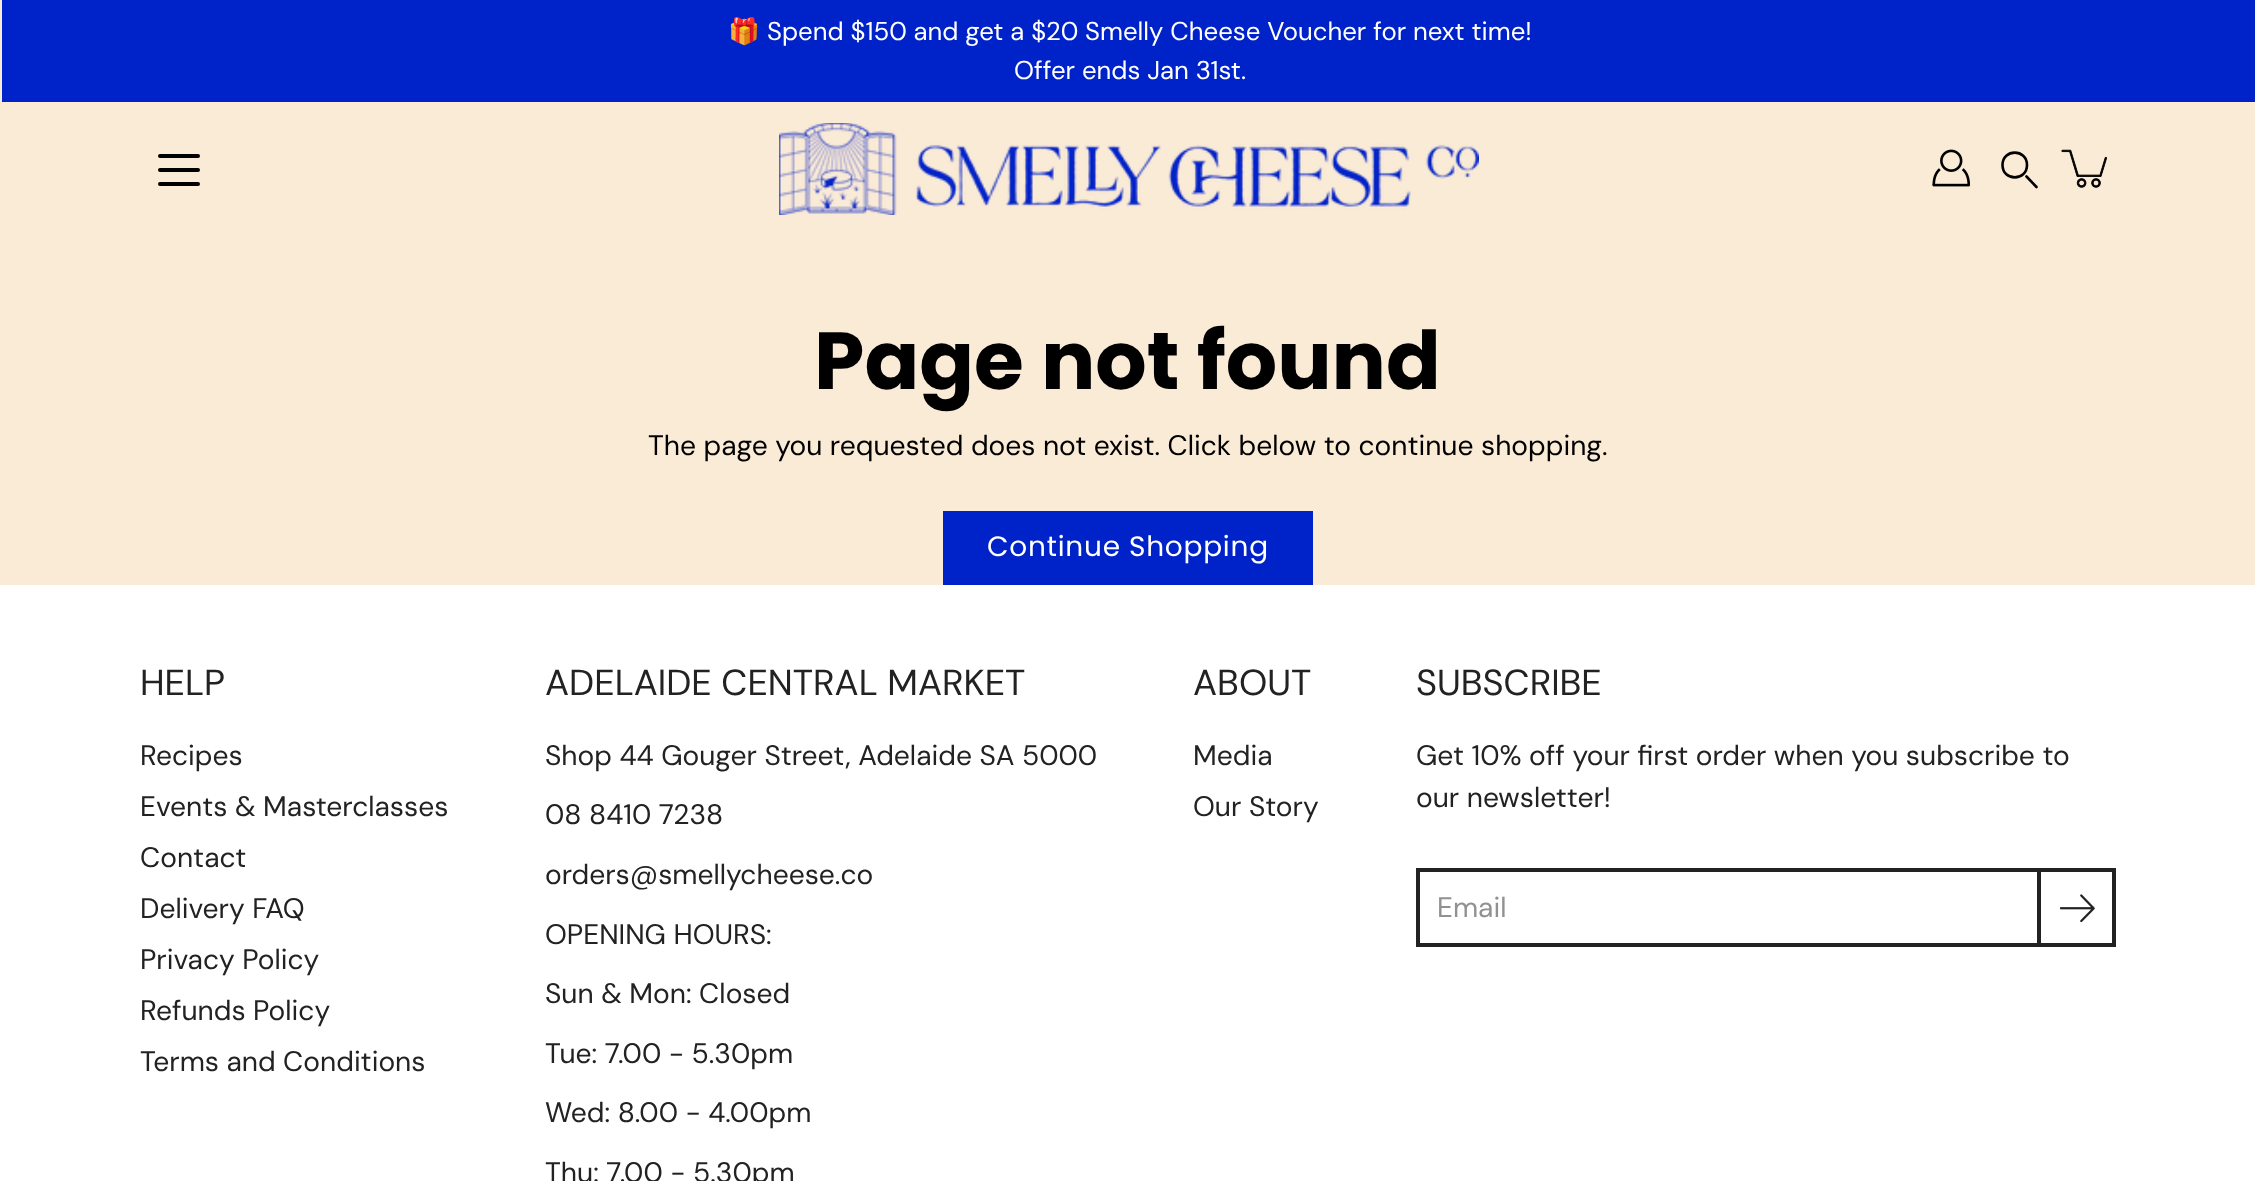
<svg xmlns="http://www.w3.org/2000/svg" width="2255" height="1181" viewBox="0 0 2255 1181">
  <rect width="100%" height="100%" fill="rgb(250,235,215)"/>
  <rect x="2" y="0" width="2253" height="102" fill="rgb(0,34,201)"/>
  <text x="728" y="40" font-family="Noto Color Emoji" font-size="25.75" fill="rgb(255,255,255)">🎁</text>
  <g font-family="'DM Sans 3'" font-size="25.75" fill="rgb(255,255,255)">
    <text x="767" y="40">Spend $150 and get a $20 Smelly Cheese Voucher for next time!</text>
    <text x="1014" y="79">Offer ends Jan 31st.</text>
  </g>
  <image x="779" y="123" width="700" height="92" href="pic1.png"/>
  <rect x="158" y="168" width="42" height="4" rx="2" fill="rgb(0,0,0)"/>
  <rect x="158" y="154" width="42" height="4" rx="2" fill="rgb(0,0,0)"/>
  <rect x="158" y="182" width="42" height="4" rx="2" fill="rgb(0,0,0)"/>
  <image x="1932" y="149" width="39" height="38" href="pic2.png"/>
  <path d="M2027 165C2027 181.5 2002.5 181.5 2002.5 165C2002.5 148.5 2027 148.5 2027 165Z" fill="none" stroke="rgb(0,0,0)" stroke-width="2.6"/>
  <path d="M2026.5 176.5L2036.5 187" fill="none" stroke="rgb(0,0,0)" stroke-width="2.6" stroke-linecap="round"/>
  <image x="2061" y="149" width="46" height="39" href="pic3.png"/>
  <text x="814" y="389" font-family="Poppins" font-size="80.75" font-weight="bold" fill="rgb(0,0,0)">Page not found</text>
  <text x="648" y="455" font-family="DM Sans" font-size="28.2" fill="rgb(0,0,0)">The page you requested does not exist. Click below to continue shopping.</text>
  <rect x="943" y="511" width="370" height="74" fill="rgb(0,34,201)"/>
  <text x="987" y="556" font-family="Poppins" font-size="28" letter-spacing="0.75" fill="rgb(255,255,255)">Continue Shopping</text>
  <rect x="0" y="585" width="2255" height="596" fill="rgb(255,255,255)"/>
  <text x="140" y="695" font-family="'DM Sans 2'" font-size="36.25" fill="rgb(34,34,34)">HELP</text>
  <g font-family="DM Sans" font-size="28.2" fill="rgb(34,34,34)">
    <text>
      <tspan x="140" y="765">Recipes</tspan>
      <tspan x="140" y="816">Events &amp; Masterclasses</tspan>
      <tspan x="140" y="867">Contact</tspan>
      <tspan x="140" y="918">Delivery FAQ</tspan>
      <tspan x="140" y="969">Privacy Policy</tspan>
      <tspan x="140" y="1020">Refunds Policy</tspan>
      <tspan x="140" y="1071">Terms and Conditions</tspan>
    </text>
  </g>
  <text x="545" y="695" font-family="'DM Sans 2'" font-size="36.25" fill="rgb(34,34,34)">ADELAIDE CENTRAL MARKET</text>
  <g font-family="DM Sans" font-size="28.2" fill="rgb(34,34,34)">
    <text x="545" y="765">Shop 44 Gouger Street, Adelaide SA 5000</text>
    <text x="545" y="824">08 8410 7238</text>
    <text x="545" y="884">orders@smellycheese.co</text>
    <text x="545" y="944">OPENING HOURS:</text>
    <text x="545" y="1003">Sun &amp; Mon: Closed</text>
    <text x="545" y="1063">Tue: 7.00 - 5.30pm</text>
    <text x="545" y="1122">Wed: 8.00 - 4.00pm</text>
    <text x="545" y="1182">Thu: 7.00 - 5.30pm</text>
  </g>
  <text x="1193" y="695" font-family="'DM Sans 2'" font-size="36.25" fill="rgb(34,34,34)">ABOUT</text>
  <g font-family="DM Sans" font-size="28.2" fill="rgb(34,34,34)">
    <text>
      <tspan x="1193" y="765">Media</tspan>
      <tspan x="1193" y="816">Our Story</tspan>
    </text>
  </g>
  <text x="1416" y="695" font-family="'DM Sans 2'" font-size="36.25" fill="rgb(34,34,34)">SUBSCRIBE</text>
  <g font-family="DM Sans" font-size="28.2" fill="rgb(34,34,34)">
    <text>
      <tspan x="1416" y="765">Get 10% off your first order when you subscribe to</tspan>
      <tspan x="1416" y="807">our newsletter!</tspan>
    </text>
  </g>
  <rect x="1418" y="870" width="696" height="75" fill="none" stroke="rgb(34,34,34)" stroke-width="4"/>
  <text x="1437" y="917" font-family="DM Sans" font-size="28.2" fill="rgb(145,145,145)">Email</text>
  <rect x="2039" y="870" width="75" height="75" fill="none" stroke="rgb(34,34,34)" stroke-width="4"/>
  <image x="2060" y="894" width="35" height="29" href="pic4.png"/>
</svg>
